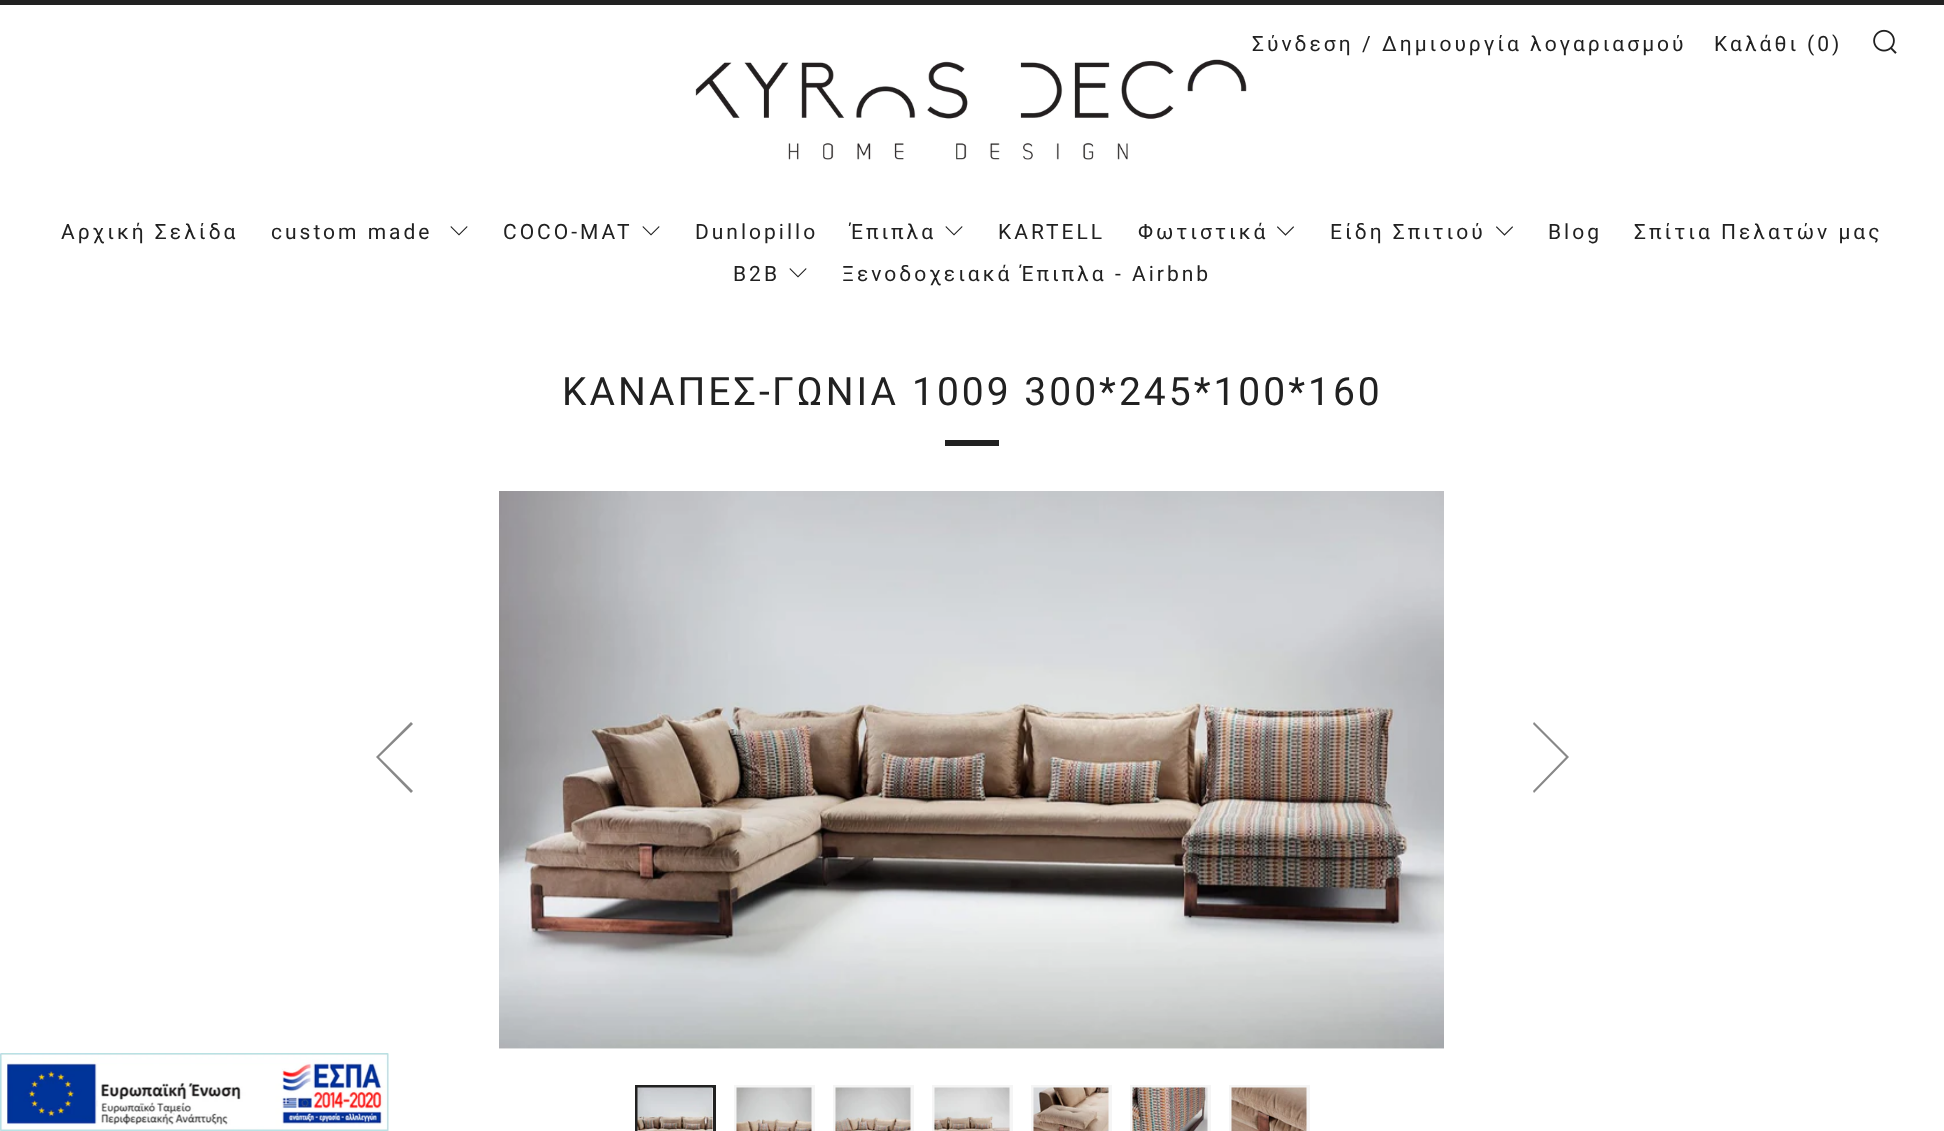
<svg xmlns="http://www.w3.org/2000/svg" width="1944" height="1131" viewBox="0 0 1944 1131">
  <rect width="100%" height="100%" fill="rgb(255,255,255)"/>
  <rect x="0" y="0" width="1944" height="5" fill="rgb(33,33,33)"/>
  <text x="1252" y="51" font-family="Roboto" font-size="21" letter-spacing="3" fill="rgb(33,33,33)">Σύνδεση</text>
  <text x="1362" y="51" font-family="'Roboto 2'" font-size="21" letter-spacing="3" fill="rgb(33,33,33)">/</text>
  <g font-family="Roboto" font-size="21" letter-spacing="3" fill="rgb(33,33,33)">
    <text x="1382" y="51">Δημιουργία λογαριασμού</text>
    <text x="1714" y="51">Καλάθι</text>
  </g>
  <text x="1807" y="51" font-family="'Roboto 2'" font-size="21" letter-spacing="3" fill="rgb(33,33,33)">(0)</text>
  <image x="1873" y="29" width="24" height="25" href="pic1.png"/>
  <text x="61" y="239" font-family="Roboto" font-size="21" letter-spacing="3" fill="rgb(33,33,33)">Αρχική Σελίδα</text>
  <text x="271" y="239" font-family="'Roboto 2'" font-size="21" letter-spacing="3" fill="rgb(33,33,33)">custom made</text>
  <path d="M451 226L450.5 227L459 235.5L467.5 227L467 226L459 234Z" fill="rgb(33,33,33)"/>
  <text x="503" y="239" font-family="'Roboto 2'" font-size="21" letter-spacing="3" fill="rgb(33,33,33)">COCO-MAT</text>
  <path d="M643 226L642.5 227L651 235.5L659.5 227L659 226L651 234Z" fill="rgb(33,33,33)"/>
  <text x="695" y="239" font-family="'Roboto 2'" font-size="21" letter-spacing="3" fill="rgb(33,33,33)">Dunlopillo</text>
  <text x="850" y="239" font-family="Roboto" font-size="21" letter-spacing="3" fill="rgb(33,33,33)">Έπιπλα</text>
  <path d="M946 226L945.5 227L954 235.5L962.5 227L962 226L954 234Z" fill="rgb(33,33,33)"/>
  <text x="998" y="239" font-family="'Roboto 2'" font-size="21" letter-spacing="3" fill="rgb(33,33,33)">KARTELL</text>
  <text x="1138" y="239" font-family="Roboto" font-size="21" letter-spacing="3" fill="rgb(33,33,33)">Φωτιστικά</text>
  <image x="1277" y="226" width="17" height="10" href="pic2.png"/>
  <text x="1330" y="239" font-family="Roboto" font-size="21" letter-spacing="3" fill="rgb(33,33,33)">Είδη Σπιτιού</text>
  <image x="1496" y="226" width="17" height="10" href="pic2.png"/>
  <text x="1548" y="239" font-family="'Roboto 2'" font-size="21" letter-spacing="3" fill="rgb(33,33,33)">Blog</text>
  <text x="1634" y="239" font-family="Roboto" font-size="21" letter-spacing="3" fill="rgb(33,33,33)">Σπίτια Πελατών μας</text>
  <text x="733" y="281" font-family="'Roboto 2'" font-size="21" letter-spacing="3" fill="rgb(33,33,33)">B2B</text>
  <path d="M790 268L789.5 269L798 277.5L806.5 269L806 268L798 276Z" fill="rgb(33,33,33)"/>
  <text x="842" y="281" font-family="Roboto" font-size="21" letter-spacing="3" fill="rgb(33,33,33)">Ξενοδοχειακά Έπιπλα</text>
  <text x="1115" y="281" font-family="'Roboto 2'" font-size="21" letter-spacing="3" fill="rgb(33,33,33)">- Airbnb</text>
  <image x="695" y="59" width="552" height="101" href="pic3.png"/>
  <text x="562" y="405" font-family="Roboto" font-size="39" letter-spacing="3" fill="rgb(33,33,33)">ΚΑΝΑΠΕΣ</text>
  <text x="759" y="405" font-family="'Roboto 2'" font-size="39" letter-spacing="3" fill="rgb(33,33,33)">-</text>
  <text x="772" y="405" font-family="Roboto" font-size="39" letter-spacing="3" fill="rgb(33,33,33)">ΓΩΝΙΑ</text>
  <text x="912" y="405" font-family="'Roboto 2'" font-size="39" letter-spacing="3" fill="rgb(33,33,33)">1009 300*245*100*160</text>
  <rect x="945" y="440" width="54" height="6" fill="rgb(33,33,33)"/>
  <path d="M413 724L411 722L376 757L411 793L413 791L379 757Z" fill="rgb(136,136,136)"/>
  <image x="499" y="491" width="945" height="558" href="pic4.png"/>
  <path d="M1533 791L1534 793L1569 757L1534 722L1533 724L1566 757Z" fill="rgb(136,136,136)"/>
  <rect x="712" y="1088" width="1" height="43" fill="rgb(245,245,245)"/>
  <rect x="636.5" y="1086.5" width="78" height="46" fill="none" stroke="rgb(33,33,33)" stroke-width="3"/>
  <image x="637" y="1087" width="76" height="44" href="pic5.png"/>
  <rect x="734" y="1085" width="81" height="46" fill="rgb(245,245,245)"/>
  <image x="736" y="1087" width="76" height="44" href="pic6.png"/>
  <rect x="833" y="1085" width="81" height="46" fill="rgb(245,245,245)"/>
  <image x="835" y="1087" width="76" height="44" href="pic7.png"/>
  <rect x="932" y="1085" width="81" height="46" fill="rgb(245,245,245)"/>
  <image x="934" y="1087" width="76" height="44" href="pic8.png"/>
  <rect x="1031" y="1085" width="81" height="46" fill="rgb(245,245,245)"/>
  <image x="1033" y="1087" width="76" height="44" href="pic9.png"/>
  <rect x="1130" y="1085" width="81" height="46" fill="rgb(245,245,245)"/>
  <image x="1132" y="1087" width="76" height="44" href="pic10.png"/>
  <rect x="1229" y="1085" width="81" height="46" fill="rgb(245,245,245)"/>
  <image x="1231" y="1087" width="76" height="44" href="pic11.png"/>
  <image x="0" y="1053" width="389" height="78" href="pic12.png"/>
</svg>
